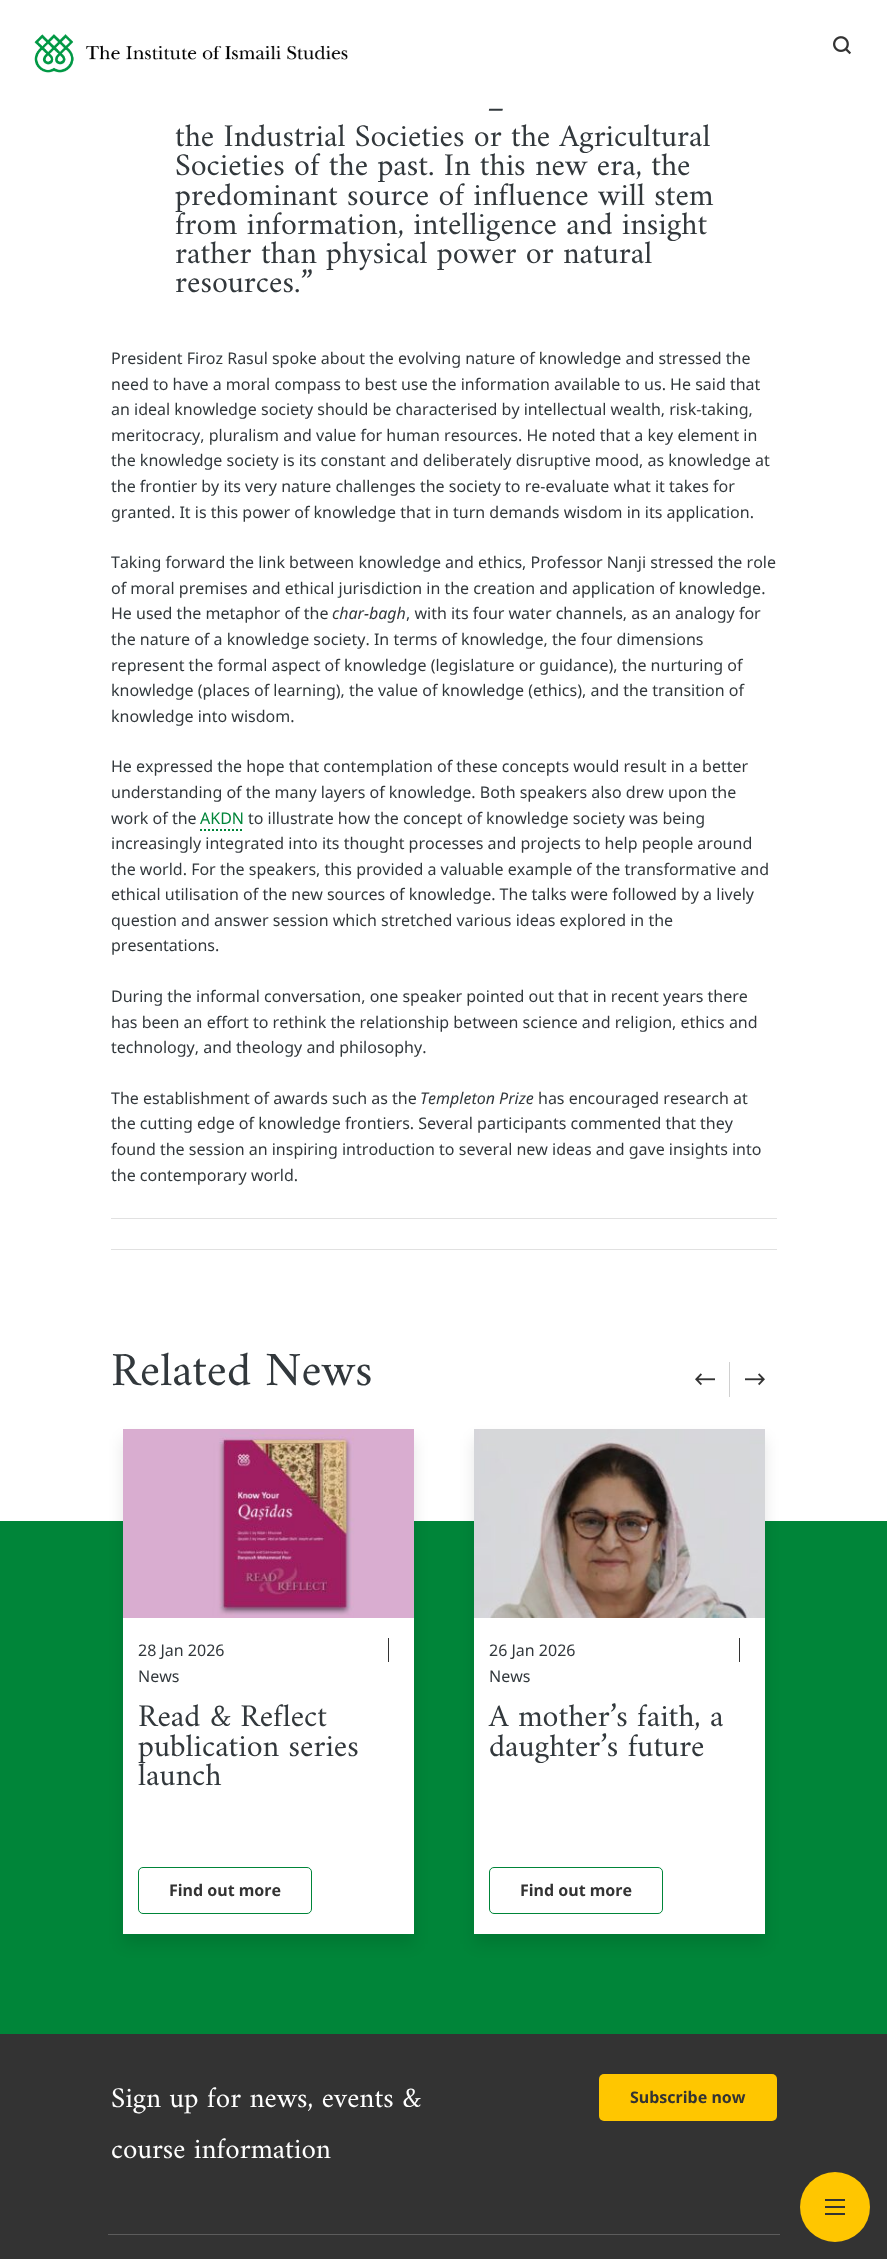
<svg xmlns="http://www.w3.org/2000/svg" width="887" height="2259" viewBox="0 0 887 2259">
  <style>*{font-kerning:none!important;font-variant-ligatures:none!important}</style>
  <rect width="100%" height="100%" fill="rgb(255,255,255)"/>
  <image x="34" y="34" width="314" height="39" href="pic1.png"/>
  <image x="833" y="36" width="18" height="19" href="pic2.png"/>
  <rect x="0" y="2034" width="887" height="225" fill="rgb(51,51,51)"/>
  <circle cx="835" cy="2207" r="35" fill="rgb(255,198,0)"/>
  <rect x="825" y="2206" width="20" height="2" fill="rgb(51,51,51)"/>
  <rect x="825" y="2199" width="20" height="2" fill="rgb(51,51,51)"/>
  <rect x="825" y="2213" width="20" height="2" fill="rgb(51,51,51)"/>
  <g font-family="Amiri" font-size="32" fill="rgb(50,56,60)">
    <text x="487" y="117">–</text>
    <text>
      <tspan x="175" y="146">the Industrial Societies or the Agricultural</tspan>
      <tspan x="175" y="175">Societies of the past. In this new era, the</tspan>
      <tspan x="175" y="205">predominant source of influence will stem</tspan>
      <tspan x="175" y="234">from information, intelligence and insight</tspan>
      <tspan x="175" y="263">rather than physical power or natural</tspan>
      <tspan x="175" y="292">resources.”</tspan>
    </text>
  </g>
  <g font-family="Noto Sans" font-size="16" fill="rgb(50,56,60)">
    <text>
      <tspan x="111" y="364">President Firoz Rasul spoke about the evolving nature of knowledge and stressed the</tspan>
      <tspan x="111" y="390">need to have a moral compass to best use the information available to us. He said that</tspan>
      <tspan x="111" y="415">an ideal knowledge society should be characterised by intellectual wealth, risk-taking,</tspan>
      <tspan x="111" y="441">meritocracy, pluralism and value for human resources. He noted that a key element in</tspan>
      <tspan x="111" y="466">the knowledge society is its constant and deliberately disruptive mood, as knowledge at</tspan>
      <tspan x="111" y="492">the frontier by its very nature challenges the society to re-evaluate what it takes for</tspan>
      <tspan x="111" y="518">granted. It is this power of knowledge that in turn demands wisdom in its application.</tspan>
    </text>
    <text>
      <tspan x="111" y="568">Taking forward the link between knowledge and ethics, Professor Nanji stressed the role</tspan>
      <tspan x="111" y="594">of moral premises and ethical jurisdiction in the creation and application of knowledge.</tspan>
      <tspan x="111" y="619">He used the metaphor of the</tspan>
    </text>
  </g>
  <text x="332" y="619" font-family="Noto Sans" font-size="16" font-style="italic" fill="rgb(50,56,60)">char-bagh</text>
  <g font-family="Noto Sans" font-size="16" fill="rgb(50,56,60)">
    <text x="406" y="619">, with its four water channels, as an analogy for</text>
    <text>
      <tspan x="111" y="645">the nature of a knowledge society. In terms of knowledge, the four dimensions</tspan>
      <tspan x="111" y="671">represent the formal aspect of knowledge (legislature or guidance), the nurturing of</tspan>
      <tspan x="111" y="696">knowledge (places of learning), the value of knowledge (ethics), and the transition of</tspan>
      <tspan x="111" y="722">knowledge into wisdom.</tspan>
    </text>
    <text>
      <tspan x="111" y="772">He expressed the hope that contemplation of these concepts would result in a better</tspan>
      <tspan x="111" y="798">understanding of the many layers of knowledge. Both speakers also drew upon the</tspan>
      <tspan x="111" y="824">work of the</tspan>
    </text>
  </g>
  <text x="200" y="824" font-family="Noto Sans" font-size="16" fill="rgb(0,133,57)">AKDN</text>
  <path d="M200 830H244" fill="none" stroke="rgb(0,133,57)" stroke-width="2" stroke-dasharray="2 2"/>
  <g font-family="Noto Sans" font-size="16" fill="rgb(50,56,60)">
    <text x="248" y="824">to illustrate how the concept of knowledge society was being</text>
    <text>
      <tspan x="111" y="849">increasingly integrated into its thought processes and projects to help people around</tspan>
      <tspan x="111" y="875">the world. For the speakers, this provided a valuable example of the transformative and</tspan>
      <tspan x="111" y="900">ethical utilisation of the new sources of knowledge. The talks were followed by a lively</tspan>
      <tspan x="111" y="926">question and answer session which stretched various ideas explored in the</tspan>
      <tspan x="111" y="951">presentations.</tspan>
    </text>
    <text>
      <tspan x="111" y="1002">During the informal conversation, one speaker pointed out that in recent years there</tspan>
      <tspan x="111" y="1028">has been an effort to rethink the relationship between science and religion, ethics and</tspan>
      <tspan x="111" y="1053">technology, and theology and philosophy.</tspan>
    </text>
    <text x="111" y="1104">The establishment of awards such as the</text>
  </g>
  <text x="420" y="1104" font-family="Noto Sans" font-size="16" font-style="italic" fill="rgb(50,56,60)">Templeton Prize</text>
  <g font-family="Noto Sans" font-size="16" fill="rgb(50,56,60)">
    <text x="538" y="1104">has encouraged research at</text>
    <text>
      <tspan x="111" y="1129">the cutting edge of knowledge frontiers. Several participants commented that they</tspan>
      <tspan x="111" y="1155">found the session an inspiring introduction to several new ideas and gave insights into</tspan>
      <tspan x="111" y="1181">the contemporary world.</tspan>
    </text>
  </g>
  <rect x="111" y="1218" width="666" height="1" fill="rgb(225,225,225)"/>
  <rect x="111" y="1249" width="666" height="1" fill="rgb(225,225,225)"/>
  <text x="111" y="1385" font-family="Amiri" font-size="48" fill="rgb(50,56,60)">Related News</text>
  <image x="695" y="1373" width="20" height="13" href="pic3.png"/>
  <rect x="729" y="1362" width="1" height="35" fill="rgb(208,208,208)"/>
  <image x="745" y="1373" width="20" height="13" href="pic4.png"/>
  <rect x="0" y="1521" width="887" height="513" fill="rgb(0,133,57)"/>
  <rect x="123" y="1439" width="291" height="505" fill="rgba(0,0,0,0.1)" filter="blur(7.5px)"/>
  <rect x="123" y="1618" width="291" height="316" fill="rgb(255,255,255)"/>
  <image x="123" y="1429" width="291" height="189" href="pic5.png"/>
  <rect x="388" y="1638" width="1" height="24" fill="rgb(51,51,51)"/>
  <g font-family="Noto Sans" font-size="16" fill="rgb(50,56,60)">
    <text>
      <tspan x="138" y="1656">28 Jan 2026</tspan>
      <tspan x="138" y="1682">News</tspan>
    </text>
  </g>
  <g font-family="Amiri" font-size="32" fill="rgb(50,56,60)">
    <text>
      <tspan x="138" y="1726">Read &amp; Reflect</tspan>
      <tspan x="138" y="1756">publication series</tspan>
      <tspan x="138" y="1785">launch</tspan>
    </text>
  </g>
  <rect x="138.5" y="1867.5" width="173" height="46" rx="4.5" fill="none" stroke="rgb(0,133,57)"/>
  <text x="169" y="1896" font-family="Noto Sans" font-size="16" font-weight="bold" fill="rgb(51,51,51)">Find out more</text>
  <rect x="474" y="1439" width="291" height="505" fill="rgba(0,0,0,0.1)" filter="blur(7.5px)"/>
  <rect x="474" y="1618" width="291" height="316" fill="rgb(255,255,255)"/>
  <image x="474" y="1429" width="291" height="189" href="pic6.png"/>
  <rect x="739" y="1638" width="1" height="24" fill="rgb(51,51,51)"/>
  <g font-family="Noto Sans" font-size="16" fill="rgb(50,56,60)">
    <text>
      <tspan x="489" y="1656">26 Jan 2026</tspan>
      <tspan x="489" y="1682">News</tspan>
    </text>
  </g>
  <g font-family="Amiri" font-size="32" fill="rgb(50,56,60)">
    <text>
      <tspan x="489" y="1726">A mother’s faith, a</tspan>
      <tspan x="489" y="1756">daughter’s future</tspan>
    </text>
  </g>
  <rect x="489.5" y="1867.5" width="173" height="46" rx="4.5" fill="none" stroke="rgb(0,133,57)"/>
  <text x="520" y="1896" font-family="Noto Sans" font-size="16" font-weight="bold" fill="rgb(51,51,51)">Find out more</text>
  <rect x="108" y="2234" width="672" height="1" fill="rgb(92,92,92)"/>
  <g font-family="Amiri" font-size="29" fill="rgb(255,255,255)">
    <text>
      <tspan x="111" y="2107">Sign up for news, events &amp;</tspan>
      <tspan x="111" y="2158">course information</tspan>
    </text>
  </g>
  <rect x="599" y="2074" width="178" height="47" rx="5" fill="rgb(255,198,0)"/>
  <text x="630" y="2103" font-family="Noto Sans" font-size="16" font-weight="bold" fill="rgb(51,51,51)">Subscribe now</text>
</svg>
